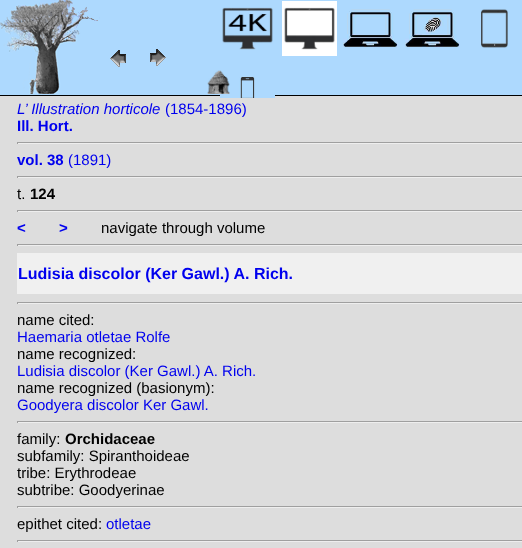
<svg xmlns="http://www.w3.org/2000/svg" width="522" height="548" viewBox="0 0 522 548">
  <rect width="100%" height="100%" fill="rgb(221,221,221)"/>
  <rect x="0" y="0" width="522" height="95" fill="rgb(173,217,254)"/>
  <rect x="0" y="95" width="522" height="1" fill="rgb(0,0,0)"/>
  <image x="0" y="0" width="100" height="94" href="pic1.png"/>
  <image x="110" y="50" width="16" height="17" href="pic2.png"/>
  <image x="150" y="49" width="16" height="17" href="pic3.png"/>
  <image x="222" y="7" width="51" height="43" href="pic4.png"/>
  <image x="282" y="1" width="55" height="55" href="pic5.png"/>
  <image x="343" y="9" width="55" height="38" href="pic6.png"/>
  <image x="405" y="9" width="55" height="38" href="pic7.png"/>
  <image x="481" y="9" width="27" height="39" href="pic8.png"/>
  <image x="220" y="76" width="55" height="22" href="pic9.png"/>
  <image x="207" y="70" width="23" height="24" href="pic10.png"/>
  <text x="17" y="114" font-family="Liberation Sans" font-size="15" font-style="italic" fill="rgb(0,0,238)">L’ Illustration horticole</text>
  <text x="165" y="114" font-family="Liberation Sans" font-size="15" fill="rgb(0,0,238)">(1854-1896)</text>
  <text x="17" y="131" font-family="Liberation Sans" font-size="15" font-weight="bold" fill="rgb(0,0,238)">Ill. Hort.</text>
  <rect x="17" y="142" width="505" height="1" fill="rgb(159,159,159)"/>
  <rect x="17" y="143" width="505" height="1" fill="rgb(238,238,238)"/>
  <rect x="17" y="142" width="1" height="2" fill="rgb(159,159,159)"/>
  <text x="17" y="165" font-family="Liberation Sans" font-size="15" font-weight="bold" fill="rgb(0,0,238)">vol. 38</text>
  <text x="68" y="165" font-family="Liberation Sans" font-size="15" fill="rgb(0,0,238)">(1891)</text>
  <rect x="17" y="176" width="505" height="1" fill="rgb(159,159,159)"/>
  <rect x="17" y="177" width="505" height="1" fill="rgb(238,238,238)"/>
  <rect x="17" y="176" width="1" height="2" fill="rgb(159,159,159)"/>
  <text x="17" y="199" font-family="Liberation Sans" font-size="15" fill="rgb(0,0,0)">t.</text>
  <text x="30" y="199" font-family="Liberation Sans" font-size="15" font-weight="bold" fill="rgb(0,0,0)">124</text>
  <rect x="17" y="210" width="505" height="1" fill="rgb(159,159,159)"/>
  <rect x="17" y="211" width="505" height="1" fill="rgb(238,238,238)"/>
  <rect x="17" y="210" width="1" height="2" fill="rgb(159,159,159)"/>
  <g font-family="Liberation Sans" font-size="15" font-weight="bold" fill="rgb(0,0,238)">
    <text x="17" y="233">&lt;</text>
    <text x="59" y="233">&gt;</text>
  </g>
  <text x="101" y="233" font-family="Liberation Sans" font-size="15" fill="rgb(0,0,0)">navigate through volume</text>
  <rect x="17" y="244" width="505" height="1" fill="rgb(159,159,159)"/>
  <rect x="17" y="245" width="505" height="1" fill="rgb(238,238,238)"/>
  <rect x="17" y="244" width="1" height="2" fill="rgb(159,159,159)"/>
  <rect x="17" y="253" width="505" height="41" fill="rgb(240,240,240)"/>
  <text x="18" y="279" font-family="Liberation Sans" font-size="16" font-weight="bold" fill="rgb(0,0,238)">Ludisia discolor (Ker Gawl.) A. Rich.</text>
  <rect x="17" y="302" width="505" height="1" fill="rgb(159,159,159)"/>
  <rect x="17" y="303" width="505" height="1" fill="rgb(238,238,238)"/>
  <rect x="17" y="302" width="1" height="2" fill="rgb(159,159,159)"/>
  <text x="17" y="325" font-family="Liberation Sans" font-size="15" fill="rgb(0,0,0)">name cited:</text>
  <text x="17" y="342" font-family="Liberation Sans" font-size="15" fill="rgb(0,0,238)">Haemaria otletae Rolfe</text>
  <text x="17" y="359" font-family="Liberation Sans" font-size="15" fill="rgb(0,0,0)">name recognized:</text>
  <text x="17" y="376" font-family="Liberation Sans" font-size="15" fill="rgb(0,0,238)">Ludisia discolor (Ker Gawl.) A. Rich.</text>
  <text x="17" y="393" font-family="Liberation Sans" font-size="15" fill="rgb(0,0,0)">name recognized (basionym):</text>
  <text x="17" y="410" font-family="Liberation Sans" font-size="15" fill="rgb(0,0,238)">Goodyera discolor Ker Gawl.</text>
  <rect x="17" y="421" width="505" height="1" fill="rgb(159,159,159)"/>
  <rect x="17" y="422" width="505" height="1" fill="rgb(238,238,238)"/>
  <rect x="17" y="421" width="1" height="2" fill="rgb(159,159,159)"/>
  <text x="17" y="444" font-family="Liberation Sans" font-size="15" fill="rgb(0,0,0)">family:</text>
  <text x="65" y="444" font-family="Liberation Sans" font-size="15" font-weight="bold" fill="rgb(0,0,0)">Orchidaceae</text>
  <g font-family="Liberation Sans" font-size="15" fill="rgb(0,0,0)">
    <text>
      <tspan x="17" y="461">subfamily: Spiranthoideae</tspan>
      <tspan x="17" y="478">tribe: Erythrodeae</tspan>
      <tspan x="17" y="495">subtribe: Goodyerinae</tspan>
    </text>
  </g>
  <rect x="17" y="506" width="505" height="1" fill="rgb(159,159,159)"/>
  <rect x="17" y="507" width="505" height="1" fill="rgb(238,238,238)"/>
  <rect x="17" y="506" width="1" height="2" fill="rgb(159,159,159)"/>
  <text x="17" y="529" font-family="Liberation Sans" font-size="15" fill="rgb(0,0,0)">epithet cited:</text>
  <text x="106" y="529" font-family="Liberation Sans" font-size="15" fill="rgb(0,0,238)">otletae</text>
  <rect x="17" y="540" width="505" height="1" fill="rgb(159,159,159)"/>
  <rect x="17" y="541" width="505" height="1" fill="rgb(238,238,238)"/>
  <rect x="17" y="540" width="1" height="2" fill="rgb(159,159,159)"/>
</svg>
